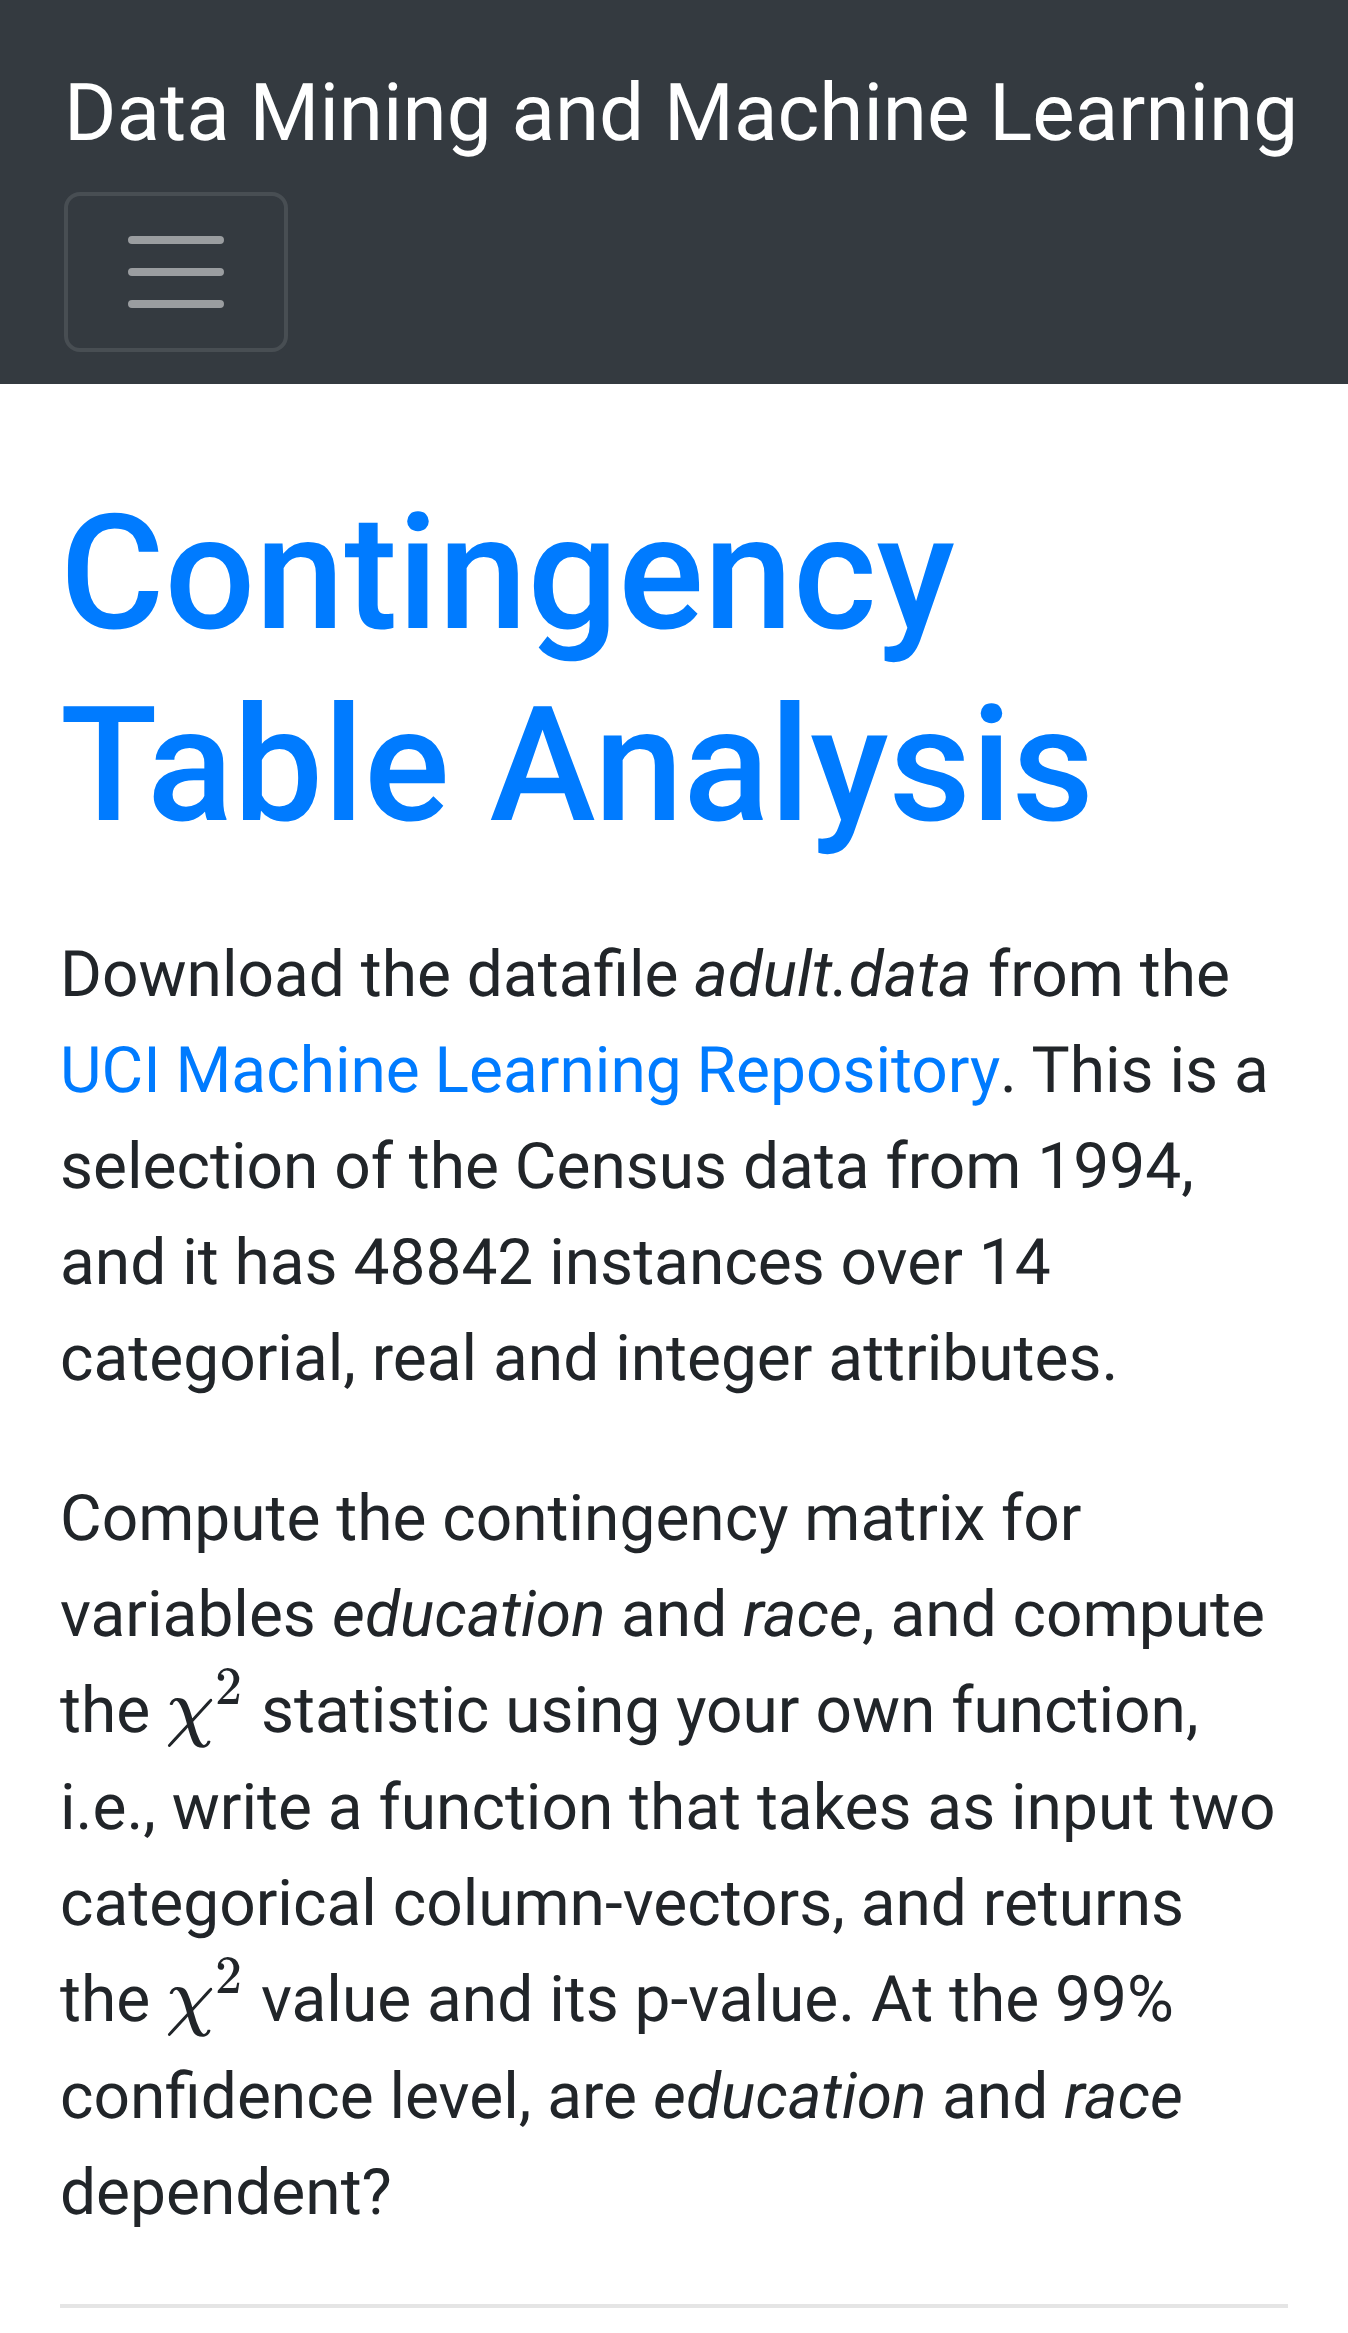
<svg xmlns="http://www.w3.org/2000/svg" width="1348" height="2333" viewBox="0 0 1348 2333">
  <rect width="100%" height="100%" fill="rgb(255,255,255)"/>
  <rect x="0" y="0" width="1348" height="384" fill="rgb(52,58,64)"/>
  <text x="64" y="140" font-family="Roboto" font-size="80" fill="rgb(255,255,255)">Data Mining and Machine Learning</text>
  <rect x="66" y="194" width="220" height="156" rx="14" fill="none" stroke="rgb(72,78,83)" stroke-width="4"/>
  <path d="M132 240H220M132 272H220M132 304H220" fill="none" stroke="rgb(154,157,160)" stroke-width="8" stroke-linecap="round"/>
  <g font-family="Roboto" font-size="160" font-weight="500" fill="rgb(0,123,255)">
    <text>
      <tspan x="60" y="628">Contingency</tspan>
      <tspan x="60" y="820">Table Analysis</tspan>
    </text>
  </g>
  <text x="60" y="996" font-family="Roboto" font-size="64" fill="rgb(33,37,41)">Download the datafile</text>
  <text x="694" y="996" font-family="Roboto" font-size="64" font-style="italic" fill="rgb(33,37,41)">adult.data</text>
  <text x="988" y="996" font-family="Roboto" font-size="64" fill="rgb(33,37,41)">from the</text>
  <text x="60" y="1092" word-spacing="-1" font-family="Roboto" font-size="64" fill="rgb(0,123,255)">UCI Machine Learning Repository</text>
  <g font-family="Roboto" font-size="64" fill="rgb(33,37,41)">
    <text x="1000" y="1092">. This is a</text>
    <text>
      <tspan x="60" y="1188">selection of the Census data from 1994,</tspan>
      <tspan x="60" y="1284">and it has 48842 instances over 14</tspan>
      <tspan x="60" y="1380">categorial, real and integer attributes.</tspan>
    </text>
    <text>
      <tspan x="60" y="1540">Compute the contingency matrix for</tspan>
      <tspan x="60" y="1636">variables</tspan>
    </text>
  </g>
  <text x="332" y="1636" font-family="Roboto" font-size="64" font-style="italic" fill="rgb(33,37,41)">education</text>
  <text x="621" y="1636" font-family="Roboto" font-size="64" fill="rgb(33,37,41)">and</text>
  <text x="743" y="1636" font-family="Roboto" font-size="64" font-style="italic" fill="rgb(33,37,41)">race</text>
  <g font-family="Roboto" font-size="64" fill="rgb(33,37,41)">
    <text x="862" y="1636">, and compute</text>
    <text x="60" y="1732">the</text>
  </g>
  <text x="215" y="1704" font-family="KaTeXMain" font-size="54" fill="rgb(33,37,41)">2</text>
  <text x="166" y="1732" font-family="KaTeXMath" font-size="77" font-style="italic" fill="rgb(33,37,41)">χ</text>
  <g font-family="Roboto" font-size="64" fill="rgb(33,37,41)">
    <text x="261" y="1732">statistic using your own function,</text>
    <text>
      <tspan x="60" y="1829">i.e., write a function that takes as input two</tspan>
      <tspan x="60" y="1925">categorical column-vectors, and returns</tspan>
      <tspan x="60" y="2021">the</tspan>
    </text>
  </g>
  <text x="215" y="1993" font-family="KaTeXMain" font-size="54" fill="rgb(33,37,41)">2</text>
  <text x="166" y="2021" font-family="KaTeXMath" font-size="77" font-style="italic" fill="rgb(33,37,41)">χ</text>
  <g font-family="Roboto" font-size="64" fill="rgb(33,37,41)">
    <text x="261" y="2021">value and its p-value. At the 99%</text>
    <text x="60" y="2118">confidence level, are</text>
  </g>
  <text x="653" y="2118" font-family="Roboto" font-size="64" font-style="italic" fill="rgb(33,37,41)">education</text>
  <text x="942" y="2118" font-family="Roboto" font-size="64" fill="rgb(33,37,41)">and</text>
  <text x="1064" y="2118" font-family="Roboto" font-size="64" font-style="italic" fill="rgb(33,37,41)">race</text>
  <text x="60" y="2214" font-family="Roboto" font-size="64" fill="rgb(33,37,41)">dependent?</text>
  <rect x="60" y="2304" width="1228" height="4" fill="rgb(229,229,229)"/>
</svg>
